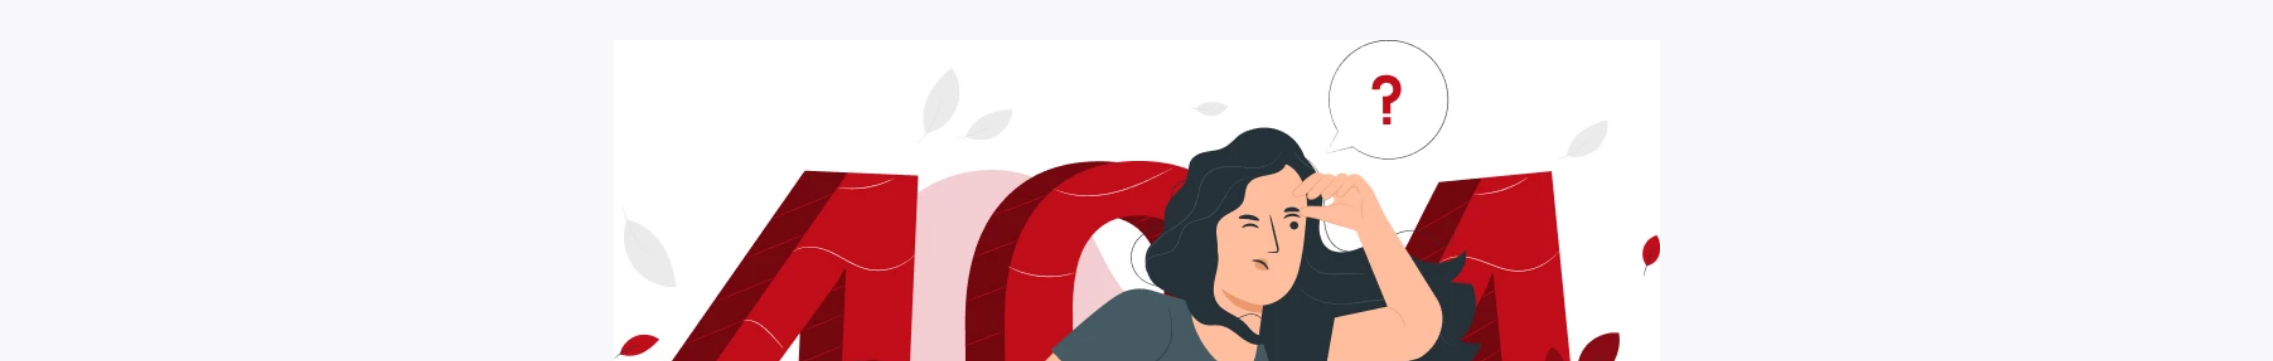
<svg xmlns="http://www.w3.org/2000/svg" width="2273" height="361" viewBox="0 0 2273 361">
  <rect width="100%" height="100%" fill="rgb(248,248,250)"/>
  <image x="613" y="40" width="1047" height="321" href="pic1.png"/>
</svg>
